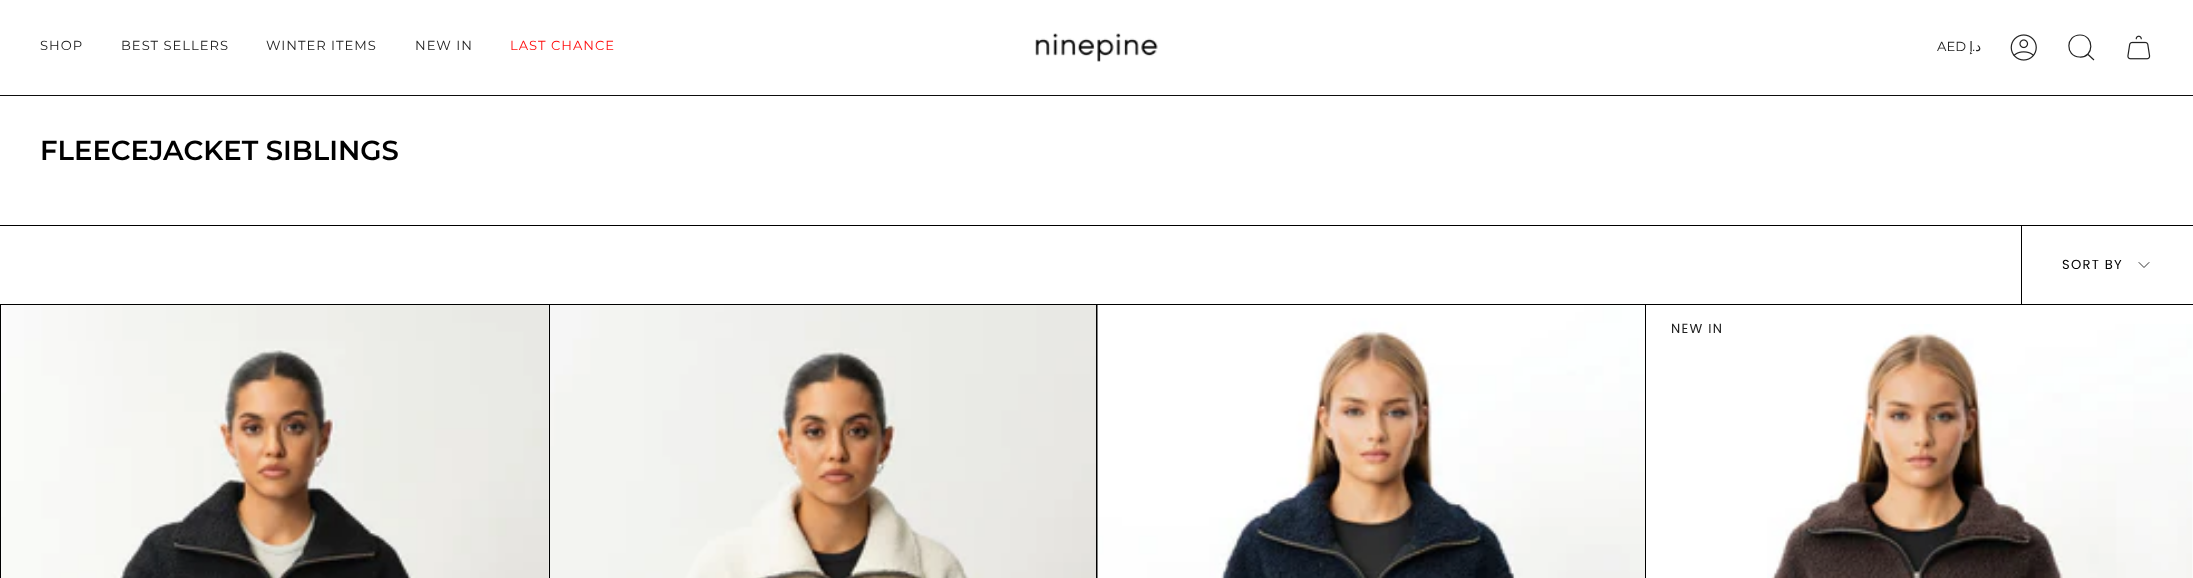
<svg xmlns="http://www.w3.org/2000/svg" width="2193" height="578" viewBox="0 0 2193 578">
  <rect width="100%" height="100%" fill="rgb(255,255,255)"/>
  <g font-family="Montserrat" font-size="13.1" letter-spacing="1" fill="rgb(33,33,33)">
    <text x="40" y="50">SHOP</text>
    <text x="121" y="50">BEST SELLERS</text>
    <text x="266" y="50">WINTER ITEMS</text>
    <text x="415" y="50">NEW IN</text>
  </g>
  <text x="510" y="50" font-family="Montserrat" font-size="13.1" letter-spacing="1" fill="rgb(255,14,14)">LAST CHANCE</text>
  <image x="1035" y="33" width="123" height="29" href="pic1.png"/>
  <text x="1937" y="51" font-family="Montserrat" font-size="13.1" fill="rgb(33,33,33)">AED</text>
  <text x="1973" y="51" font-family="DejaVu Sans" font-size="13.1" direction="rtl" fill="rgb(33,33,33)">إ</text>
  <text x="1975" y="51" font-family="Montserrat" font-size="13.1" direction="rtl" fill="rgb(33,33,33)">.</text>
  <text x="1981" y="51" font-family="DejaVu Sans" font-size="13.1" direction="rtl" fill="rgb(33,33,33)">د</text>
  <image x="2010" y="34" width="27" height="27" href="pic2.png"/>
  <path d="M2080 35C2094.5 35 2094.5 58 2079.5 57C2065 56.5 2065.5 35 2080 35ZM2087.5 54L2094 60" fill="none" stroke="rgb(33,33,33)" stroke-width="1.2"/>
  <image x="2127" y="35" width="24" height="25" href="pic3.png"/>
  <rect x="0" y="95" width="2193" height="1" fill="rgb(13,13,13)"/>
  <text x="40" y="160" font-family="Montserrat" font-size="27.5" font-weight="600" fill="rgb(0,0,0)">FLEECEJACKET SIBLINGS</text>
  <rect x="0" y="225" width="2193" height="1" fill="rgb(0,0,0)"/>
  <rect x="2021" y="226" width="1" height="78" fill="rgb(0,0,0)"/>
  <text x="2062" y="269" font-family="Poppins" font-size="13.1" letter-spacing="1.25" fill="rgb(0,0,0)">SORT BY</text>
  <path d="M2139 262.5L2144 267.5L2149 262.5" fill="none" stroke="rgb(0,0,0)" stroke-width="0.8" stroke-linecap="round" stroke-linejoin="round"/>
  <rect x="0.5" y="304.5" width="549" height="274" fill="none" stroke="rgb(0,0,0)"/>
  <image x="1" y="305" width="548" height="273" href="pic4.png"/>
  <rect x="549.5" y="304.5" width="548" height="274" fill="none" stroke="rgb(0,0,0)"/>
  <image x="550" y="305" width="546" height="273" href="pic5.png"/>
  <rect x="1096.5" y="304.5" width="549" height="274" fill="none" stroke="rgb(0,0,0)"/>
  <image x="1097" y="305" width="548" height="273" href="pic6.png"/>
  <rect x="1645.5" y="304.5" width="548" height="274" fill="none" stroke="rgb(0,0,0)"/>
  <text x="1671" y="333" font-family="Poppins" font-size="13.1" letter-spacing="1.25" fill="rgb(33,33,33)">NEW IN</text>
  <image x="1767" y="324" width="426" height="254" href="pic7.png"/>
</svg>
